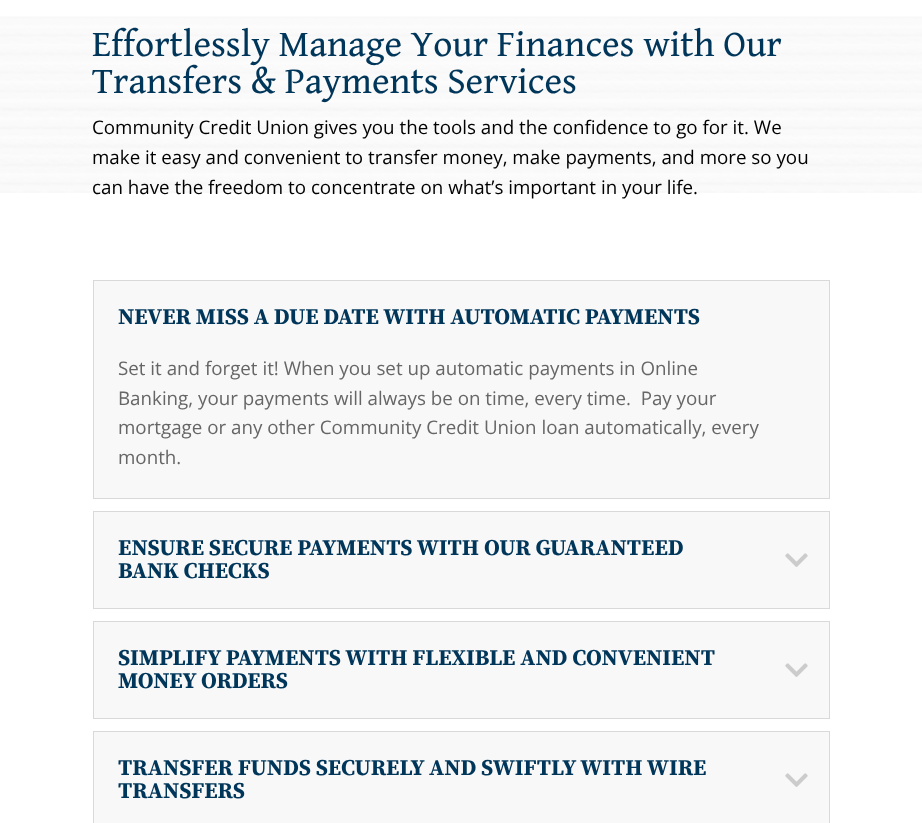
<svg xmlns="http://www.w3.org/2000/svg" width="922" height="823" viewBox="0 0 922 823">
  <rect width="100%" height="100%" fill="rgb(255,255,255)"/>
  <image x="0" y="16" width="922" height="177" href="pic1.png"/>
  <g font-family="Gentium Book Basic" font-size="37.5" fill="rgb(0,54,90)">
    <text>
      <tspan x="92" y="56">Effortlessly Manage Your Finances with Our</tspan>
      <tspan x="92" y="93">Transfers &amp; Payments Services</tspan>
    </text>
  </g>
  <g font-family="Open Sans" font-size="18.75" fill="rgb(0,0,0)">
    <text>
      <tspan x="92" y="134">Community Credit Union gives you the tools and the confidence to go for it. We</tspan>
      <tspan x="92" y="164">make it easy and convenient to transfer money, make payments, and more so you</tspan>
      <tspan x="92" y="194">can have the freedom to concentrate on what’s important in your life.</tspan>
    </text>
  </g>
  <rect x="93.5" y="280.5" width="736" height="218" fill="rgb(248,248,248)" stroke="rgb(217,217,217)"/>
  <text x="118" y="324" font-family="Source Serif Pro" font-size="22.5" font-weight="bold" fill="rgb(0,54,90)">NEVER MISS A DUE DATE WITH AUTOMATIC PAYMENTS</text>
  <g font-family="Open Sans" font-size="18.75" fill="rgb(102,102,102)">
    <text xml:space="preserve"><tspan x="118" y="375">Set it and forget it! When you set up automatic payments in Online</tspan><tspan x="118" y="405">Banking, your payments will always be on time, every time.  Pay your</tspan><tspan x="118" y="434">mortgage or any other Community Credit Union loan automatically, every</tspan><tspan x="118" y="464">month.</tspan></text>
  </g>
  <rect x="93.5" y="511.5" width="736" height="97" fill="rgb(248,248,248)" stroke="rgb(217,217,217)"/>
  <text x="118" y="555" font-family="Source Serif Pro" font-size="22.5" font-weight="bold" fill="rgb(0,54,90)">ENSURE SECURE PAYMENTS WITH OUR GUARANTEED</text>
  <image x="785" y="553" width="23" height="14" href="pic2.png"/>
  <text x="118" y="578" font-family="Source Serif Pro" font-size="22.5" font-weight="bold" fill="rgb(0,54,90)">BANK CHECKS</text>
  <rect x="93.5" y="621.5" width="736" height="97" fill="rgb(248,248,248)" stroke="rgb(217,217,217)"/>
  <text x="118" y="665" font-family="Source Serif Pro" font-size="22.5" font-weight="bold" fill="rgb(0,54,90)">SIMPLIFY PAYMENTS WITH FLEXIBLE AND CONVENIENT</text>
  <image x="785" y="663" width="23" height="14" href="pic2.png"/>
  <text x="118" y="688" font-family="Source Serif Pro" font-size="22.5" font-weight="bold" fill="rgb(0,54,90)">MONEY ORDERS</text>
  <rect x="93.5" y="731.5" width="736" height="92" fill="rgb(248,248,248)" stroke="rgb(217,217,217)"/>
  <text x="118" y="775" font-family="Source Serif Pro" font-size="22.5" font-weight="bold" fill="rgb(0,54,90)">TRANSFER FUNDS SECURELY AND SWIFTLY WITH WIRE</text>
  <image x="785" y="773" width="23" height="14" href="pic2.png"/>
  <text x="118" y="798" font-family="Source Serif Pro" font-size="22.5" font-weight="bold" fill="rgb(0,54,90)">TRANSFERS</text>
</svg>
